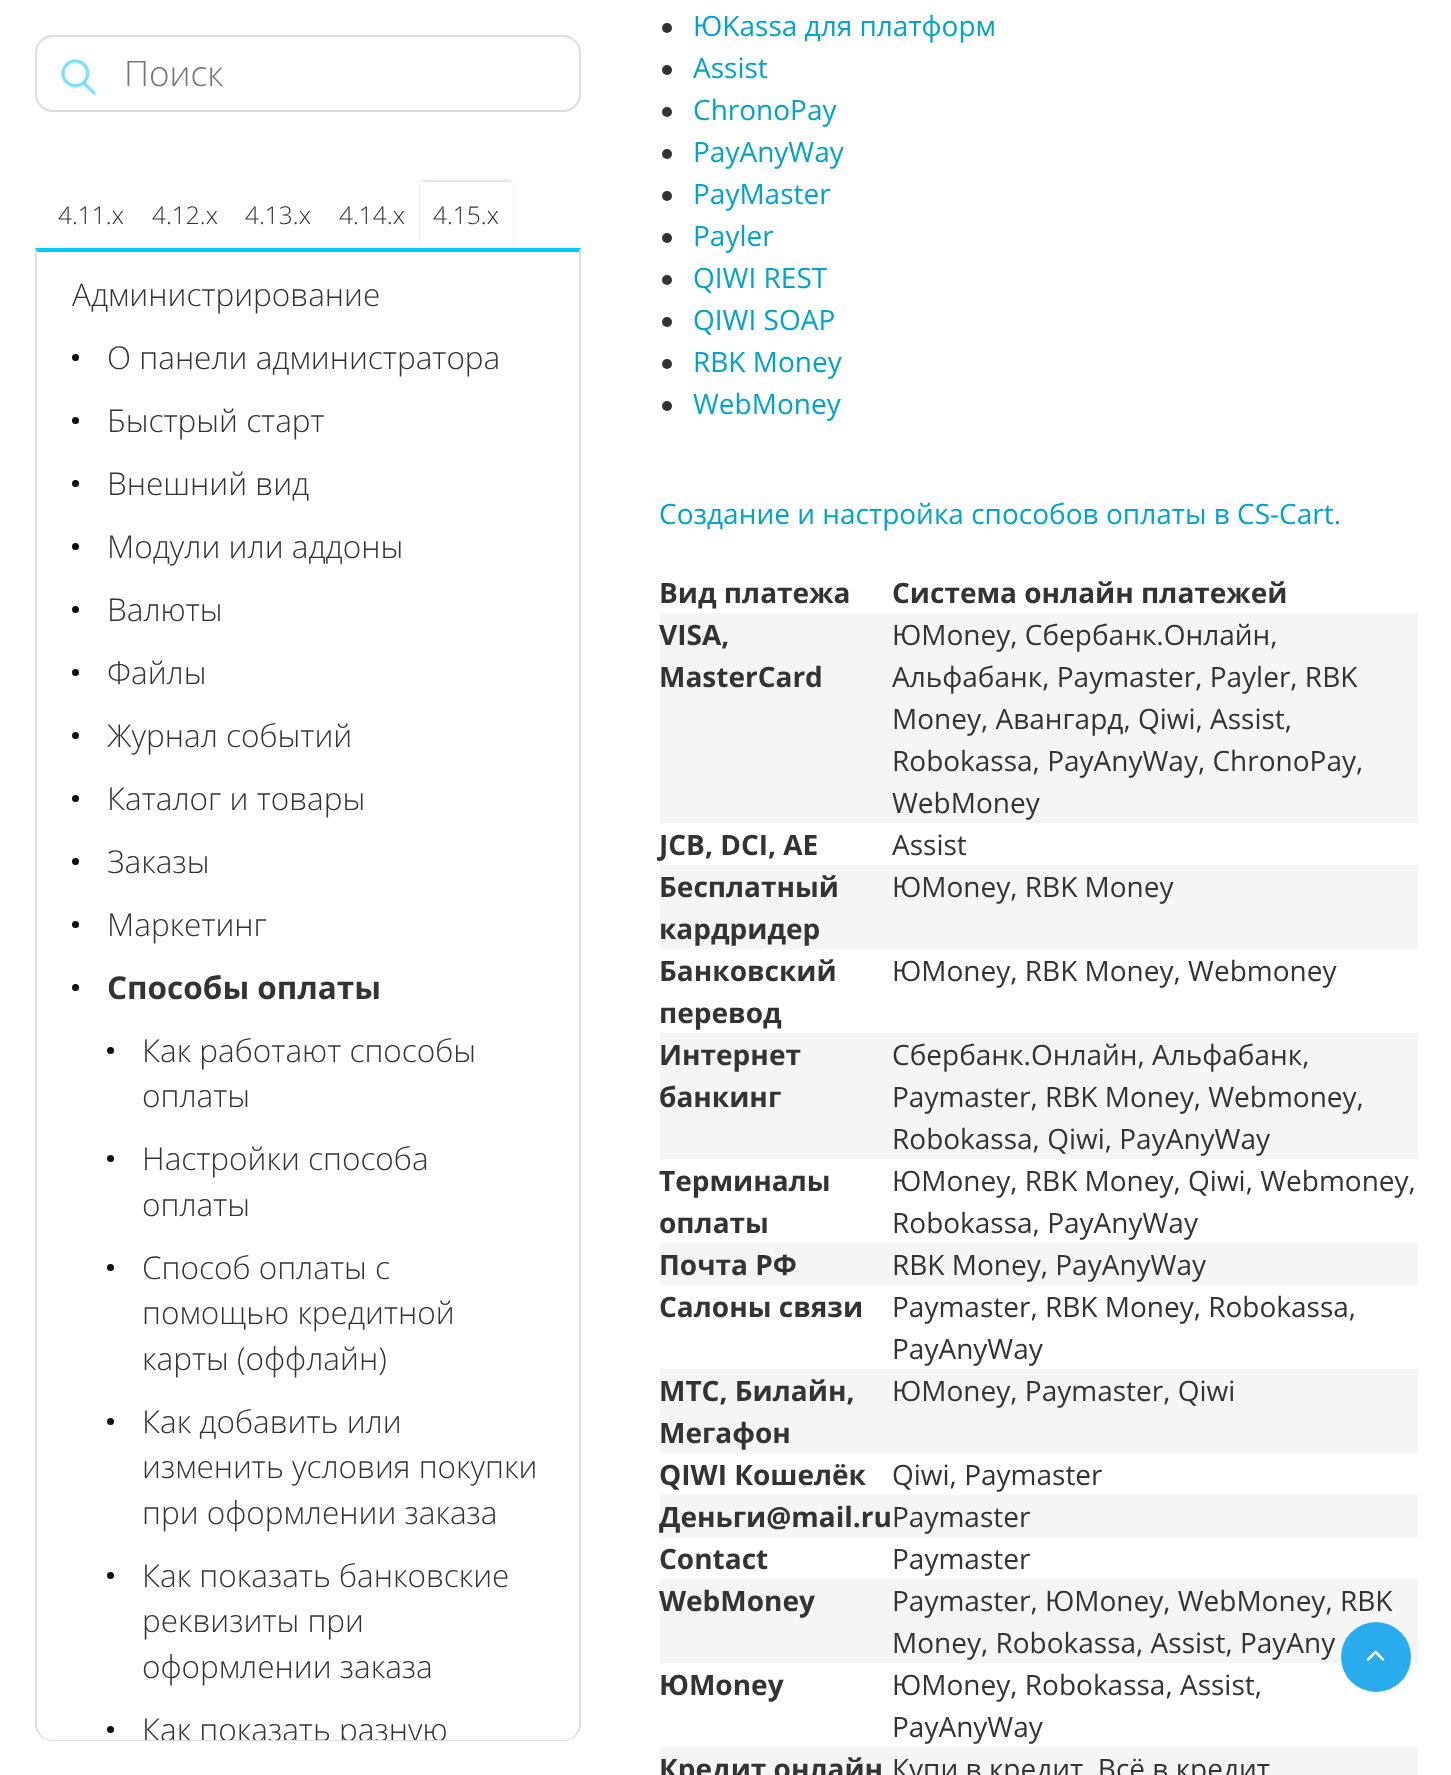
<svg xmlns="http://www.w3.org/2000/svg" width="1451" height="1775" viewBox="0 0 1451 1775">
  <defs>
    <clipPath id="clip1"><path d="M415 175H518V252H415ZM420 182H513V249H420Z" clip-rule="evenodd"/></clipPath>
    <clipPath id="clip2"><path d="M37 252H579V1724C579 1733 572 1740 563 1740H53C44 1740 37 1733 37 1724Z"/></clipPath>
  </defs>
  <rect width="100%" height="100%" fill="rgb(255,255,255)"/>
  <image x="60" y="59" width="37" height="37" href="pic1.png"/>
  <rect x="36" y="36" width="544" height="75" rx="17" fill="none" stroke="rgb(221,221,221)" stroke-width="2"/>
  <text x="124" y="86" font-family="Open Sans" font-size="35" font-weight="300" fill="rgb(117,117,117)">Поиск</text>
  <g font-family="Open Sans" font-size="24.5" font-weight="300" fill="rgb(51,51,51)">
    <text x="58" y="224">4.11.x</text>
    <text x="152" y="224">4.12.x</text>
    <text x="245" y="224">4.13.x</text>
    <text x="339" y="224">4.14.x</text>
  </g>
  <g clip-path="url(#clip1)">
    <rect x="422" y="182" width="89" height="63" fill="rgba(0,0,0,0.3)" filter="blur(2px)"/>
  </g>
  <text x="433" y="224" font-family="Open Sans" font-size="24.5" font-weight="300" fill="rgb(51,51,51)">4.15.x</text>
  <path d="M37 252H579L581 248H35Z" fill="rgb(0,204,253)"/>
  <path d="M581 248L579 252V1724C579 1728 577 1732 575 1735L576 1736C579 1733 581 1729 581 1724Z" fill="rgb(221,221,221)"/>
  <path d="M576 1736C573 1739 568 1741 564 1741H52C48 1741 43 1739 40 1736L41 1735C44 1738 48 1740 52 1740H564C568 1740 572 1738 575 1735Z" fill="rgb(221,221,221)"/>
  <path d="M35 248V1724C35 1729 37 1733 40 1736L41 1735C39 1732 37 1728 37 1724V252Z" fill="rgb(221,221,221)"/>
  <text x="72" y="306" font-family="Open Sans" font-size="31.5" font-weight="300" fill="rgb(51,51,51)">Администрирование</text>
  <circle cx="75.5" cy="357.5" r="3.5" fill="rgb(15,15,15)"/>
  <text x="107" y="369" font-family="Open Sans" font-size="31.5" font-weight="300" fill="rgb(51,51,51)">О панели администратора</text>
  <circle cx="75.5" cy="420.5" r="3.5" fill="rgb(15,15,15)"/>
  <text x="107" y="432" font-family="Open Sans" font-size="31.5" font-weight="300" fill="rgb(51,51,51)">Быстрый старт</text>
  <circle cx="75.5" cy="483.5" r="3.5" fill="rgb(15,15,15)"/>
  <text x="107" y="495" font-family="Open Sans" font-size="31.5" font-weight="300" fill="rgb(51,51,51)">Внешний вид</text>
  <circle cx="75.5" cy="546.5" r="3.5" fill="rgb(15,15,15)"/>
  <text x="107" y="558" font-family="Open Sans" font-size="31.5" font-weight="300" fill="rgb(51,51,51)">Модули или аддоны</text>
  <circle cx="75.5" cy="609.5" r="3.5" fill="rgb(15,15,15)"/>
  <text x="107" y="621" font-family="Open Sans" font-size="31.5" font-weight="300" fill="rgb(51,51,51)">Валюты</text>
  <circle cx="75.5" cy="672.5" r="3.5" fill="rgb(15,15,15)"/>
  <text x="107" y="684" font-family="Open Sans" font-size="31.5" font-weight="300" fill="rgb(51,51,51)">Файлы</text>
  <circle cx="75.5" cy="735.5" r="3.5" fill="rgb(15,15,15)"/>
  <text x="107" y="747" font-family="Open Sans" font-size="31.5" font-weight="300" fill="rgb(51,51,51)">Журнал событий</text>
  <circle cx="75.5" cy="798.5" r="3.5" fill="rgb(15,15,15)"/>
  <text x="107" y="810" font-family="Open Sans" font-size="31.5" font-weight="300" fill="rgb(51,51,51)">Каталог и товары</text>
  <circle cx="75.5" cy="861.5" r="3.5" fill="rgb(15,15,15)"/>
  <text x="107" y="873" font-family="Open Sans" font-size="31.5" font-weight="300" fill="rgb(51,51,51)">Заказы</text>
  <circle cx="75.5" cy="924.5" r="3.5" fill="rgb(15,15,15)"/>
  <text x="107" y="936" font-family="Open Sans" font-size="31.5" font-weight="300" fill="rgb(51,51,51)">Маркетинг</text>
  <circle cx="75.5" cy="987.5" r="3.5" fill="rgb(15,15,15)"/>
  <text x="107" y="999" font-family="Open Sans" font-size="31.5" font-weight="bold" fill="rgb(51,51,51)">Способы оплаты</text>
  <circle cx="110.5" cy="1050.5" r="3.5" fill="rgb(15,15,15)"/>
  <g font-family="Open Sans" font-size="31.5" font-weight="300" fill="rgb(51,51,51)">
    <text>
      <tspan x="142" y="1062">Как работают способы</tspan>
      <tspan x="142" y="1107">оплаты</tspan>
    </text>
  </g>
  <circle cx="110.5" cy="1158.5" r="3.5" fill="rgb(15,15,15)"/>
  <g font-family="Open Sans" font-size="31.5" font-weight="300" fill="rgb(51,51,51)">
    <text>
      <tspan x="142" y="1170">Настройки способа</tspan>
      <tspan x="142" y="1216">оплаты</tspan>
    </text>
  </g>
  <circle cx="110.5" cy="1267.5" r="3.5" fill="rgb(15,15,15)"/>
  <g font-family="Open Sans" font-size="31.5" font-weight="300" fill="rgb(51,51,51)">
    <text>
      <tspan x="142" y="1279">Способ оплаты с</tspan>
      <tspan x="142" y="1324">помощью кредитной</tspan>
      <tspan x="142" y="1370">карты (оффлайн)</tspan>
    </text>
  </g>
  <circle cx="110.5" cy="1421.5" r="3.5" fill="rgb(15,15,15)"/>
  <g font-family="Open Sans" font-size="31.5" font-weight="300" fill="rgb(51,51,51)">
    <text>
      <tspan x="142" y="1433">Как добавить или</tspan>
      <tspan x="142" y="1478">изменить условия покупки</tspan>
      <tspan x="142" y="1524">при оформлении заказа</tspan>
    </text>
  </g>
  <circle cx="110.5" cy="1575.5" r="3.5" fill="rgb(15,15,15)"/>
  <g font-family="Open Sans" font-size="31.5" font-weight="300" fill="rgb(51,51,51)">
    <text>
      <tspan x="142" y="1587">Как показать банковские</tspan>
      <tspan x="142" y="1632">реквизиты при</tspan>
      <tspan x="142" y="1678">оформлении заказа</tspan>
    </text>
  </g>
  <circle cx="110.5" cy="1729.5" r="3.5" fill="rgb(15,15,15)"/>
  <g clip-path="url(#clip2)">
    <text x="142" y="1741" font-family="Open Sans" font-size="31.5" font-weight="300" fill="rgb(51,51,51)">Как показать разную</text>
  </g>
  <circle cx="667" cy="28" r="5" fill="rgb(51,51,51)"/>
  <text x="693" y="36" font-family="Open Sans" font-size="28" fill="rgb(0,163,202)">ЮKassa для платформ</text>
  <circle cx="667" cy="70" r="5" fill="rgb(51,51,51)"/>
  <text x="693" y="78" font-family="Open Sans" font-size="28" fill="rgb(0,163,202)">Assist</text>
  <circle cx="667" cy="112" r="5" fill="rgb(51,51,51)"/>
  <text x="693" y="120" font-family="Open Sans" font-size="28" fill="rgb(0,163,202)">ChronoPay</text>
  <circle cx="667" cy="154" r="5" fill="rgb(51,51,51)"/>
  <text x="693" y="162" font-family="Open Sans" font-size="28" fill="rgb(0,163,202)">PayAnyWay</text>
  <circle cx="667" cy="196" r="5" fill="rgb(51,51,51)"/>
  <text x="693" y="204" font-family="Open Sans" font-size="28" fill="rgb(0,163,202)">PayMaster</text>
  <circle cx="667" cy="238" r="5" fill="rgb(51,51,51)"/>
  <text x="693" y="246" font-family="Open Sans" font-size="28" fill="rgb(0,163,202)">Payler</text>
  <circle cx="667" cy="280" r="5" fill="rgb(51,51,51)"/>
  <text x="693" y="288" font-family="Open Sans" font-size="28" fill="rgb(0,163,202)">QIWI REST</text>
  <circle cx="667" cy="322" r="5" fill="rgb(51,51,51)"/>
  <text x="693" y="330" font-family="Open Sans" font-size="28" fill="rgb(0,163,202)">QIWI SOAP</text>
  <circle cx="667" cy="364" r="5" fill="rgb(51,51,51)"/>
  <text x="693" y="372" font-family="Open Sans" font-size="28" fill="rgb(0,163,202)">RBK Money</text>
  <circle cx="667" cy="406" r="5" fill="rgb(51,51,51)"/>
  <g font-family="Open Sans" font-size="28" fill="rgb(0,163,202)">
    <text x="693" y="414">WebMoney</text>
    <text x="659" y="524">Создание и настройка способов оплаты в CS-Cart.</text>
  </g>
  <g font-family="Open Sans" font-size="28" font-weight="bold" fill="rgb(51,51,51)">
    <text x="659" y="603">Вид платежа</text>
    <text x="892" y="603">Система онлайн платежей</text>
  </g>
  <rect x="660" y="613" width="758" height="210" fill="rgb(245,245,245)"/>
  <g font-family="Open Sans" font-size="28" font-weight="bold" fill="rgb(51,51,51)">
    <text>
      <tspan x="659" y="645">VISA,</tspan>
      <tspan x="659" y="687">MasterCard</tspan>
    </text>
  </g>
  <g font-family="Open Sans" font-size="28" fill="rgb(51,51,51)">
    <text>
      <tspan x="892" y="645">ЮMoney, Сбербанк.Онлайн,</tspan>
      <tspan x="892" y="687">Альфабанк, Paymaster, Payler, RBK</tspan>
      <tspan x="892" y="729">Money, Авангард, Qiwi, Assist,</tspan>
      <tspan x="892" y="771">Robokassa, PayAnyWay, ChronoPay,</tspan>
      <tspan x="892" y="813">WebMoney</tspan>
    </text>
  </g>
  <text x="659" y="855" font-family="Open Sans" font-size="28" font-weight="bold" fill="rgb(51,51,51)">JCB, DCI, AE</text>
  <text x="892" y="855" font-family="Open Sans" font-size="28" fill="rgb(51,51,51)">Assist</text>
  <rect x="660" y="865" width="758" height="84" fill="rgb(245,245,245)"/>
  <g font-family="Open Sans" font-size="28" font-weight="bold" fill="rgb(51,51,51)">
    <text>
      <tspan x="659" y="897">Бесплатный</tspan>
      <tspan x="659" y="939">кардридер</tspan>
    </text>
  </g>
  <text x="892" y="897" font-family="Open Sans" font-size="28" fill="rgb(51,51,51)">ЮMoney, RBK Money</text>
  <g font-family="Open Sans" font-size="28" font-weight="bold" fill="rgb(51,51,51)">
    <text>
      <tspan x="659" y="981">Банковский</tspan>
      <tspan x="659" y="1023">перевод</tspan>
    </text>
  </g>
  <text x="892" y="981" font-family="Open Sans" font-size="28" fill="rgb(51,51,51)">ЮMoney, RBK Money, Webmoney</text>
  <rect x="660" y="1033" width="758" height="126" fill="rgb(245,245,245)"/>
  <g font-family="Open Sans" font-size="28" font-weight="bold" fill="rgb(51,51,51)">
    <text>
      <tspan x="659" y="1065">Интернет</tspan>
      <tspan x="659" y="1107">банкинг</tspan>
    </text>
  </g>
  <g font-family="Open Sans" font-size="28" fill="rgb(51,51,51)">
    <text>
      <tspan x="892" y="1065">Сбербанк.Онлайн, Альфабанк,</tspan>
      <tspan x="892" y="1107">Paymaster, RBK Money, Webmoney,</tspan>
      <tspan x="892" y="1149">Robokassa, Qiwi, PayAnyWay</tspan>
    </text>
  </g>
  <g font-family="Open Sans" font-size="28" font-weight="bold" fill="rgb(51,51,51)">
    <text>
      <tspan x="659" y="1191">Терминалы</tspan>
      <tspan x="659" y="1233">оплаты</tspan>
    </text>
  </g>
  <g font-family="Open Sans" font-size="28" fill="rgb(51,51,51)">
    <text>
      <tspan x="892" y="1191">ЮMoney, RBK Money, Qiwi, Webmoney,</tspan>
      <tspan x="892" y="1233">Robokassa, PayAnyWay</tspan>
    </text>
  </g>
  <rect x="660" y="1243" width="758" height="42" fill="rgb(245,245,245)"/>
  <text x="659" y="1275" font-family="Open Sans" font-size="28" font-weight="bold" fill="rgb(51,51,51)">Почта РФ</text>
  <text x="892" y="1275" font-family="Open Sans" font-size="28" fill="rgb(51,51,51)">RBK Money, PayAnyWay</text>
  <text x="659" y="1317" font-family="Open Sans" font-size="28" font-weight="bold" fill="rgb(51,51,51)">Салоны связи</text>
  <g font-family="Open Sans" font-size="28" fill="rgb(51,51,51)">
    <text>
      <tspan x="892" y="1317">Paymaster, RBK Money, Robokassa,</tspan>
      <tspan x="892" y="1359">PayAnyWay</tspan>
    </text>
  </g>
  <rect x="660" y="1369" width="758" height="84" fill="rgb(245,245,245)"/>
  <g font-family="Open Sans" font-size="28" font-weight="bold" fill="rgb(51,51,51)">
    <text>
      <tspan x="659" y="1401">МТС, Билайн,</tspan>
      <tspan x="659" y="1443">Мегафон</tspan>
    </text>
  </g>
  <text x="892" y="1401" font-family="Open Sans" font-size="28" fill="rgb(51,51,51)">ЮMoney, Paymaster, Qiwi</text>
  <text x="659" y="1485" font-family="Open Sans" font-size="28" font-weight="bold" fill="rgb(51,51,51)">QIWI Кошелёк</text>
  <text x="892" y="1485" font-family="Open Sans" font-size="28" fill="rgb(51,51,51)">Qiwi, Paymaster</text>
  <rect x="660" y="1495" width="758" height="42" fill="rgb(245,245,245)"/>
  <text x="659" y="1527" font-family="Open Sans" font-size="28" font-weight="bold" fill="rgb(51,51,51)">Деньги@mail.ru</text>
  <text x="892" y="1527" font-family="Open Sans" font-size="28" fill="rgb(51,51,51)">Paymaster</text>
  <text x="659" y="1569" font-family="Open Sans" font-size="28" font-weight="bold" fill="rgb(51,51,51)">Contact</text>
  <text x="892" y="1569" font-family="Open Sans" font-size="28" fill="rgb(51,51,51)">Paymaster</text>
  <rect x="660" y="1579" width="758" height="84" fill="rgb(245,245,245)"/>
  <text x="659" y="1611" font-family="Open Sans" font-size="28" font-weight="bold" fill="rgb(51,51,51)">WebMoney</text>
  <g font-family="Open Sans" font-size="28" fill="rgb(51,51,51)">
    <text>
      <tspan x="892" y="1611">Paymaster, ЮMoney, WebMoney, RBK</tspan>
      <tspan x="892" y="1653">Money, Robokassa, Assist, PayAny</tspan>
    </text>
  </g>
  <text x="659" y="1695" font-family="Open Sans" font-size="28" font-weight="bold" fill="rgb(51,51,51)">ЮMoney</text>
  <g font-family="Open Sans" font-size="28" fill="rgb(51,51,51)">
    <text>
      <tspan x="892" y="1695">ЮMoney, Robokassa, Assist,</tspan>
      <tspan x="892" y="1737">PayAnyWay</tspan>
    </text>
  </g>
  <rect x="660" y="1747" width="758" height="28" fill="rgb(245,245,245)"/>
  <text x="659" y="1779" font-family="Open Sans" font-size="28" font-weight="bold" fill="rgb(51,51,51)">Кредит онлайн</text>
  <text x="892" y="1779" font-family="Open Sans" font-size="28" fill="rgb(51,51,51)">Купи в кредит, Всё в кредит</text>
  <circle cx="1376" cy="1657" r="35" fill="rgb(40,172,237)"/>
  <image x="1366" y="1650" width="19" height="11" href="pic2.png"/>
</svg>
